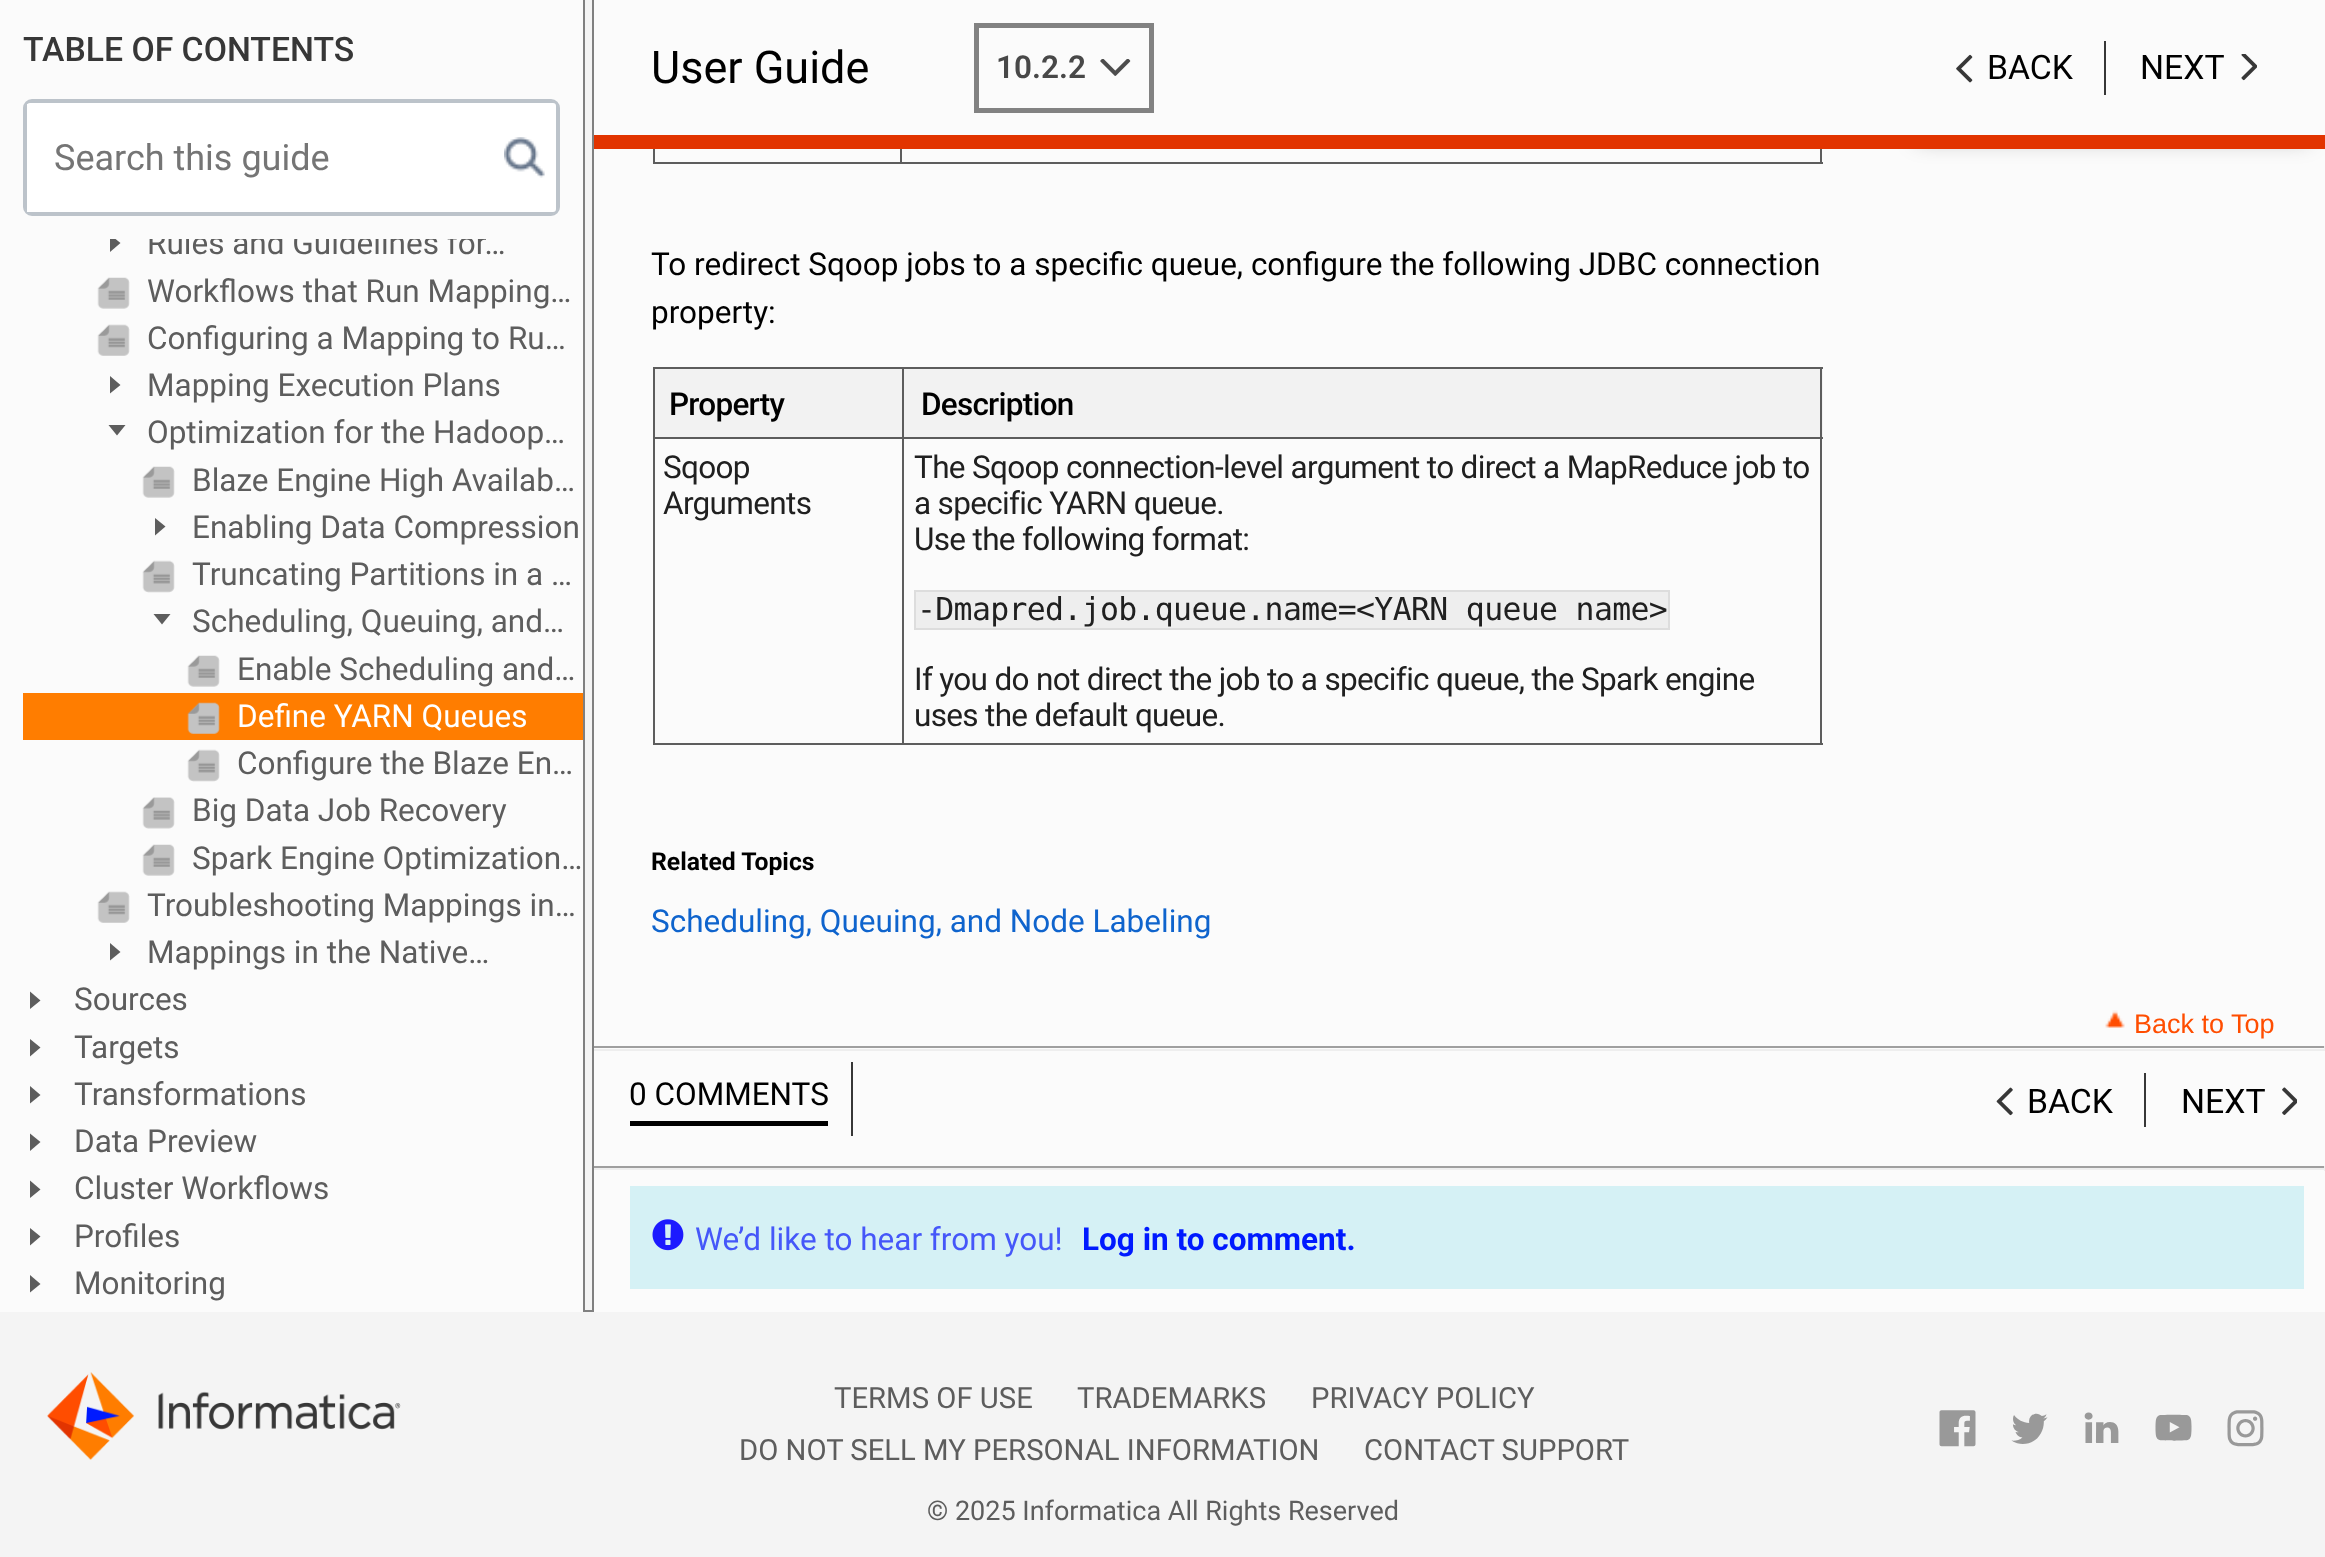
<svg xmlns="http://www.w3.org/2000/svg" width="2325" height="1557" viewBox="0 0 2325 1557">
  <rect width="100%" height="100%" fill="rgb(244,244,244)"/>
  <rect x="0" y="239" width="583" height="1073" fill="rgb(251,251,251)"/>
  <path d="M110 234.5L120.5 243L110 252Z" fill="rgb(93,93,93)"/>
  <text x="147" y="254" font-family="Roboto" font-size="31.5" fill="rgb(93,93,93)">Rules and Guidelines for…</text>
  <rect x="0" y="0" width="583" height="239" fill="rgb(251,251,251)"/>
  <text x="23" y="61" font-family="Roboto" font-size="33.75" font-weight="500" fill="rgb(55,55,55)">TABLE OF CONTENTS</text>
  <rect x="24" y="100" width="535" height="115" rx="8" fill="rgb(255,255,255)" stroke="rgb(188,195,202)" stroke-width="2"/>
  <rect x="26" y="102" width="531" height="111" rx="4" fill="none" stroke="rgb(188,195,202)" stroke-width="2"/>
  <rect x="27" y="104" width="3" height="108" fill="rgb(255,255,255)"/>
  <text x="54" y="170" font-family="Roboto" font-size="36" fill="rgb(117,117,117)">Search this guide</text>
  <image x="504" y="137" width="41" height="41" href="pic1.png"/>
  <rect x="592" y="0" width="2" height="1312" fill="rgb(128,128,128)"/>
  <rect x="583" y="1310" width="11" height="2" fill="rgb(128,128,128)"/>
  <rect x="583" y="0" width="2" height="1312" fill="rgb(128,128,128)"/>
  <image x="97" y="277" width="33" height="32" href="pic2.png"/>
  <text x="147" y="302" font-family="Roboto" font-size="31.5" fill="rgb(93,93,93)">Workflows that Run Mapping…</text>
  <image x="97" y="324" width="33" height="32" href="pic3.png"/>
  <text x="147" y="349" font-family="Roboto" font-size="31.5" fill="rgb(93,93,93)">Configuring a Mapping to Ru…</text>
  <path d="M110 376L120.5 385L110 393.5ZM125.5 425L117 435.5L108.5 425Z" fill="rgb(93,93,93)"/>
  <g font-family="Roboto" font-size="31.5" fill="rgb(93,93,93)">
    <text>
      <tspan x="147" y="396">Mapping Execution Plans</tspan>
      <tspan x="147" y="443">Optimization for the Hadoop…</tspan>
    </text>
  </g>
  <image x="142" y="466" width="33" height="32" href="pic2.png"/>
  <text x="192" y="491" font-family="Roboto" font-size="31.5" fill="rgb(93,93,93)">Blaze Engine High Availab…</text>
  <path d="M155 518L165.5 526.5L155 535.5Z" fill="rgb(93,93,93)"/>
  <text x="192" y="538" font-family="Roboto" font-size="31.5" fill="rgb(93,93,93)">Enabling Data Compression</text>
  <image x="142" y="560" width="33" height="33" href="pic4.png"/>
  <text x="192" y="585" font-family="Roboto" font-size="31.5" fill="rgb(93,93,93)">Truncating Partitions in a …</text>
  <path d="M170.5 614L162 624.5L153.5 614Z" fill="rgb(93,93,93)"/>
  <text x="192" y="632" font-family="Roboto" font-size="31.5" fill="rgb(93,93,93)">Scheduling, Queuing, and…</text>
  <image x="187" y="655" width="33" height="32" href="pic2.png"/>
  <text x="237" y="680" font-family="Roboto" font-size="31.5" fill="rgb(93,93,93)">Enable Scheduling and…</text>
  <rect x="23" y="693" width="560" height="47" fill="rgb(255,125,0)"/>
  <image x="187" y="702" width="33" height="32" href="pic5.png"/>
  <text x="237" y="727" font-family="Roboto" font-size="31.5" fill="rgb(255,255,255)">Define YARN Queues</text>
  <image x="187" y="749" width="33" height="33" href="pic4.png"/>
  <text x="237" y="774" font-family="Roboto" font-size="31.5" fill="rgb(93,93,93)">Configure the Blaze En…</text>
  <image x="142" y="797" width="33" height="32" href="pic6.png"/>
  <text x="192" y="821" font-family="Roboto" font-size="31.5" fill="rgb(93,93,93)">Big Data Job Recovery</text>
  <image x="142" y="844" width="33" height="32" href="pic2.png"/>
  <text x="192" y="869" font-family="Roboto" font-size="31.5" fill="rgb(93,93,93)">Spark Engine Optimization…</text>
  <image x="97" y="891" width="33" height="32" href="pic3.png"/>
  <text x="147" y="916" font-family="Roboto" font-size="31.5" fill="rgb(93,93,93)">Troubleshooting Mappings in…</text>
  <path d="M110 943L120.5 952L110 960.5Z" fill="rgb(93,93,93)"/>
  <text x="147" y="963" font-family="Roboto" font-size="31.5" fill="rgb(93,93,93)">Mappings in the Native…</text>
  <path d="M30 991.5L40.5 1000.5L30 1009Z" fill="rgb(93,93,93)"/>
  <text x="74" y="1010" font-family="Roboto" font-size="31.5" fill="rgb(93,93,93)">Sources</text>
  <path d="M30 1039L40.5 1047.5L30 1056.5Z" fill="rgb(93,93,93)"/>
  <text x="74" y="1058" font-family="Roboto" font-size="31.5" fill="rgb(93,93,93)">Targets</text>
  <path d="M30 1086L40.5 1095L30 1103.5Z" fill="rgb(93,93,93)"/>
  <text x="74" y="1105" font-family="Roboto" font-size="31.5" fill="rgb(93,93,93)">Transformations</text>
  <path d="M30 1133.5L40.5 1142L30 1151Z" fill="rgb(93,93,93)"/>
  <text x="74" y="1152" font-family="Roboto" font-size="31.5" fill="rgb(93,93,93)">Data Preview</text>
  <path d="M30 1180.5L40.5 1189.5L30 1198Z" fill="rgb(93,93,93)"/>
  <text x="74" y="1199" font-family="Roboto" font-size="31.5" fill="rgb(93,93,93)">Cluster Workflows</text>
  <path d="M30 1228L40.5 1236.5L30 1245.5Z" fill="rgb(93,93,93)"/>
  <text x="74" y="1247" font-family="Roboto" font-size="31.5" fill="rgb(93,93,93)">Profiles</text>
  <path d="M30 1275L40.5 1284L30 1292.5Z" fill="rgb(93,93,93)"/>
  <text x="74" y="1294" font-family="Roboto" font-size="31.5" fill="rgb(93,93,93)">Monitoring</text>
  <rect x="594" y="149" width="1731" height="1163" fill="rgb(251,251,251)"/>
  <rect x="1917" y="-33" width="392" height="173" fill="rgba(0,0,0,0.3)" filter="blur(11px)"/>
  <rect x="594" y="0" width="1731" height="135" fill="rgb(251,251,251)"/>
  <text x="651" y="83" font-family="Roboto" font-size="45" fill="rgb(0,0,0)">User Guide</text>
  <rect x="976.5" y="25.5" width="175" height="85" fill="none" stroke="rgb(130,130,130)" stroke-width="5"/>
  <text x="996" y="78" font-family="Roboto" font-size="31.5" font-weight="600" fill="rgb(72,72,72)">10.2.2</text>
  <image x="1100" y="59" width="31" height="17" href="pic7.png"/>
  <image x="1956" y="54" width="17" height="29" href="pic8.png"/>
  <text x="1987" y="79" font-family="Roboto" font-size="33.75" fill="rgb(0,0,0)">BACK</text>
  <rect x="2104" y="41" width="2" height="54" fill="rgb(55,55,55)"/>
  <text x="2140" y="79" font-family="Roboto" font-size="33.75" fill="rgb(0,0,0)">NEXT</text>
  <image x="2241" y="54" width="16" height="27" href="pic9.png"/>
  <rect x="594" y="135" width="1731" height="14" fill="rgb(226,52,0)"/>
  <rect x="1820" y="149" width="2" height="15" fill="rgb(93,93,93)"/>
  <rect x="653" y="162" width="1170" height="2" fill="rgb(93,93,93)"/>
  <rect x="653" y="149" width="2" height="15" fill="rgb(93,93,93)"/>
  <rect x="900" y="149" width="2" height="15" fill="rgb(93,93,93)"/>
  <g font-family="Roboto" font-size="31.5" fill="rgb(0,0,0)">
    <text>
      <tspan x="651" y="275">To redirect Sqoop jobs to a specific queue, configure the following JDBC connection</tspan>
      <tspan x="651" y="323">property:</tspan>
    </text>
  </g>
  <rect x="653" y="367" width="1170" height="2" fill="rgb(93,93,93)"/>
  <rect x="655" y="369" width="1168" height="68" fill="rgb(242,242,242)"/>
  <rect x="1820" y="367" width="2" height="378" fill="rgb(93,93,93)"/>
  <rect x="653" y="743" width="1170" height="2" fill="rgb(93,93,93)"/>
  <rect x="653" y="367" width="2" height="378" fill="rgb(93,93,93)"/>
  <text x="669" y="415" font-family="Roboto" font-size="31.5" font-weight="500" letter-spacing="-0.75" fill="rgb(0,0,0)">Property</text>
  <rect x="902" y="437" width="921" height="2" fill="rgb(93,93,93)"/>
  <rect x="902" y="437" width="2" height="308" fill="rgb(93,93,93)"/>
  <rect x="653" y="437" width="252" height="2" fill="rgb(93,93,93)"/>
  <rect x="902" y="367" width="2" height="72" fill="rgb(93,93,93)"/>
  <text x="921" y="415" font-family="Roboto" font-size="31.5" font-weight="500" letter-spacing="-0.75" fill="rgb(0,0,0)">Description</text>
  <g font-family="Roboto" font-size="31.5" letter-spacing="-0.67" fill="rgb(32,32,32)">
    <text>
      <tspan x="663" y="478">Sqoop</tspan>
      <tspan x="663" y="514">Arguments</tspan>
    </text>
    <text>
      <tspan x="914" y="478">The Sqoop connection-level argument to direct a MapReduce job to</tspan>
      <tspan x="914" y="514">a specific YARN queue.</tspan>
      <tspan x="914" y="550">Use the following format:</tspan>
    </text>
  </g>
  <rect x="915" y="591" width="754" height="38" fill="rgb(238,238,238)" stroke="rgb(221,221,221)" stroke-width="2"/>
  <text x="917" y="620" font-family="DejaVu Sans Mono" font-size="31.5" letter-spacing="-0.67" fill="rgb(32,32,32)">-Dmapred.job.queue.name=&lt;YARN queue name&gt;</text>
  <g font-family="Roboto" font-size="31.5" letter-spacing="-0.67" fill="rgb(32,32,32)">
    <text>
      <tspan x="914" y="690">If you do not direct the job to a specific queue, the Spark engine</tspan>
      <tspan x="914" y="726">uses the default queue.</tspan>
    </text>
  </g>
  <text x="651" y="870" font-family="Roboto" font-size="24.75" font-weight="bold" fill="rgb(0,0,0)">Related Topics</text>
  <text x="651" y="932" font-family="Roboto" font-size="31.5" fill="rgb(15,100,205)">Scheduling, Queuing, and Node Labeling</text>
  <image x="2105" y="1010" width="20" height="18" href="pic10.png"/>
  <text x="2134" y="1033" font-family="Liberation Sans" font-size="27" fill="rgb(255,77,0)">Back to Top</text>
  <rect x="594" y="1046" width="1731" height="2" fill="rgb(159,159,159)"/>
  <rect x="2324" y="1046" width="1" height="5" fill="rgb(238,238,238)"/>
  <rect x="594" y="1049" width="1731" height="2" fill="rgb(238,238,238)"/>
  <rect x="630" y="1121" width="198" height="5" fill="rgb(0,0,0)"/>
  <text x="629" y="1105" font-family="Roboto" font-size="31.5" fill="rgb(0,0,0)">0 COMMENTS</text>
  <rect x="851" y="1062" width="2" height="74" fill="rgb(55,55,55)"/>
  <image x="1996" y="1087" width="17" height="29" href="pic11.png"/>
  <text x="2027" y="1113" font-family="Roboto" font-size="33.75" fill="rgb(0,0,0)">BACK</text>
  <rect x="2144" y="1073" width="2" height="54" fill="rgb(55,55,55)"/>
  <text x="2181" y="1113" font-family="Roboto" font-size="33.75" fill="rgb(0,0,0)">NEXT</text>
  <image x="2282" y="1087" width="15" height="28" href="pic12.png"/>
  <rect x="594" y="1166" width="1731" height="2" fill="rgb(159,159,159)"/>
  <rect x="2324" y="1166" width="1" height="5" fill="rgb(238,238,238)"/>
  <rect x="594" y="1168" width="1731" height="2" fill="rgb(238,238,238)"/>
  <rect x="630" y="1186" width="1674" height="103" fill="rgb(213,241,245)"/>
  <image x="652" y="1219" width="32" height="32" href="pic13.png"/>
  <text x="695" y="1250" font-family="Roboto" font-size="31.5" fill="rgb(69,87,249)">We’d like to hear from you!</text>
  <text x="1082" y="1250" font-family="Roboto" font-size="31.5" font-weight="bold" fill="rgb(0,26,255)">Log in to comment.</text>
  <image x="47" y="1372" width="354" height="88" href="pic14.png"/>
  <g font-family="Roboto" font-size="29.25" fill="rgb(93,93,93)">
    <text x="834" y="1408">TERMS OF USE</text>
    <text x="1077" y="1408">TRADEMARKS</text>
    <text x="1311" y="1408">PRIVACY POLICY</text>
    <text x="739" y="1460">DO NOT SELL MY PERSONAL INFORMATION</text>
    <text x="1364" y="1460">CONTACT SUPPORT</text>
  </g>
  <image x="1939" y="1410" width="37" height="37" href="pic15.png"/>
  <image x="2011" y="1413" width="37" height="31" href="pic16.png"/>
  <image x="2084" y="1412" width="35" height="31" href="pic17.png"/>
  <image x="2155" y="1414" width="37" height="27" href="pic18.png"/>
  <image x="2227" y="1410" width="37" height="37" href="pic19.png"/>
  <text x="927" y="1520" font-family="Roboto" font-size="27" fill="rgb(93,93,93)">© 2025 Informatica All Rights Reserved</text>
</svg>
